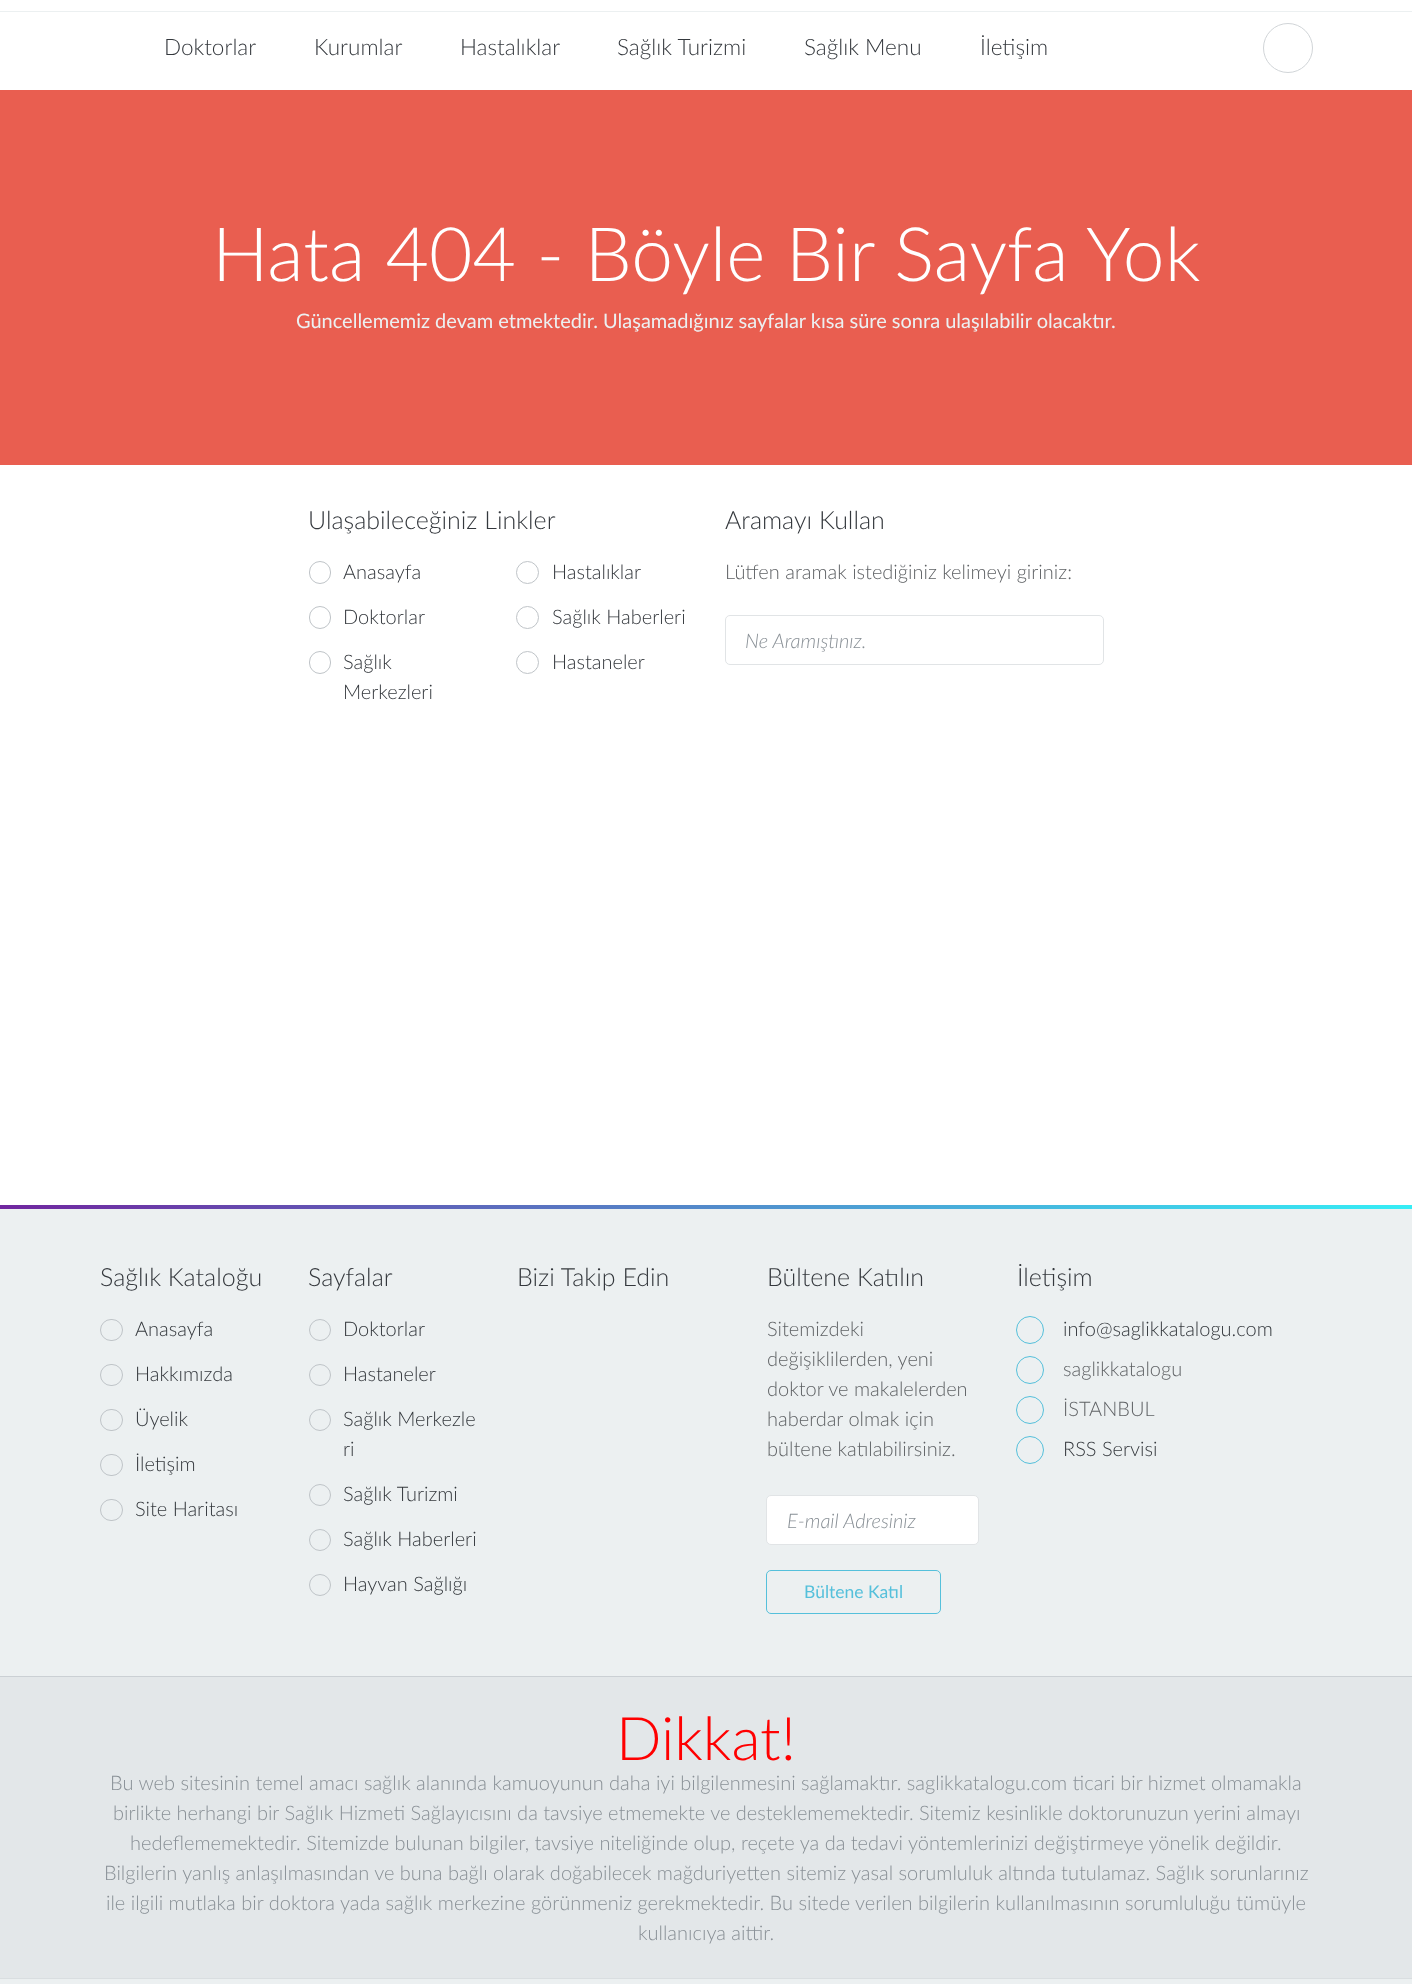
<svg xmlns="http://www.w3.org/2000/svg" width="1412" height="1984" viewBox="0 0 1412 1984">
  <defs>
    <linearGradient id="g1" gradientUnits="userSpaceOnUse" x1="0" y1="1207" x2="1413" y2="1207"><stop offset="0" stop-color="rgb(112,38,159)"/><stop offset="1" stop-color="rgb(53,238,246)"/></linearGradient>
  </defs>
  <rect width="100%" height="100%" fill="rgb(255,255,255)"/>
  <rect x="0" y="11" width="1412" height="1" fill="rgb(236,240,241)"/>
  <g font-family="Lato" font-size="22.5" font-weight="300" fill="rgb(52,56,61)">
    <text x="164" y="55">Doktorlar</text>
    <text x="314" y="55">Kurumlar</text>
    <text x="460" y="55">Hastalıklar</text>
    <text x="617" y="55">Sağlık Turizmi</text>
    <text x="804" y="55">Sağlık Menu</text>
    <text x="980" y="55">İletişim</text>
  </g>
  <circle cx="1288" cy="48" r="24.5" fill="none" stroke="rgb(209,213,216)"/>
  <rect x="0" y="90" width="1412" height="375" fill="rgb(233,94,80)"/>
  <text x="212" y="281" font-family="Lato" font-size="75" font-weight="300" fill="rgb(255,255,255)">Hata 404 - Böyle Bir Sayfa Yok</text>
  <text x="296" y="328" font-family="Lato" font-size="20" fill="rgb(236,240,241)">Güncellememiz devam etmektedir. Ulaşamadığınız sayfalar kısa süre sonra ulaşılabilir olacaktır.</text>
  <text x="308" y="529" font-family="Lato" font-size="25" font-weight="300" fill="rgb(52,56,61)">Ulaşabileceğiniz Linkler</text>
  <rect x="309.5" y="561.5" width="21" height="22" rx="10.5" fill="none" stroke="rgb(191,196,200)"/>
  <text x="343" y="579" font-family="Lato" font-size="20" font-weight="300" fill="rgb(52,56,61)">Anasayfa</text>
  <rect x="309.5" y="606.5" width="21" height="22" rx="10.5" fill="none" stroke="rgb(191,196,200)"/>
  <text x="343" y="624" font-family="Lato" font-size="20" font-weight="300" fill="rgb(52,56,61)">Doktorlar</text>
  <rect x="309.5" y="651.5" width="21" height="22" rx="10.5" fill="none" stroke="rgb(191,196,200)"/>
  <g font-family="Lato" font-size="20" font-weight="300" fill="rgb(52,56,61)">
    <text>
      <tspan x="343" y="669">Sağlık</tspan>
      <tspan x="343" y="699">Merkezleri</tspan>
    </text>
  </g>
  <circle cx="527.5" cy="572.5" r="11" fill="none" stroke="rgb(191,196,200)"/>
  <text x="552" y="579" font-family="Lato" font-size="20" font-weight="300" fill="rgb(52,56,61)">Hastalıklar</text>
  <circle cx="527.5" cy="617.5" r="11" fill="none" stroke="rgb(191,196,200)"/>
  <text x="552" y="624" font-family="Lato" font-size="20" font-weight="300" fill="rgb(52,56,61)">Sağlık Haberleri</text>
  <circle cx="527.5" cy="662.5" r="11" fill="none" stroke="rgb(191,196,200)"/>
  <text x="552" y="669" font-family="Lato" font-size="20" font-weight="300" fill="rgb(52,56,61)">Hastaneler</text>
  <text x="725" y="529" font-family="Lato" font-size="25" font-weight="300" fill="rgb(52,56,61)">Aramayı Kullan</text>
  <text x="725" y="579" font-family="Lato" font-size="20" font-weight="300" fill="rgb(96,99,102)">Lütfen aramak istediğiniz kelimeyi giriniz:</text>
  <rect x="725.5" y="615.5" width="378" height="49" rx="4.5" fill="none" stroke="rgb(225,228,230)"/>
  <text x="745" y="648" font-family="Lato" font-size="20" font-weight="300" font-style="italic" fill="rgb(137,144,150)">Ne Aramıştınız.</text>
  <rect x="0" y="1205" width="1412" height="4" fill="url(#g1)"/>
  <rect x="0" y="1209" width="1412" height="775" fill="rgb(236,240,241)"/>
  <text x="100" y="1286" font-family="Lato" font-size="25" font-weight="300" fill="rgb(52,56,61)">Sağlık Kataloğu</text>
  <rect x="100.5" y="1319.5" width="22" height="21" rx="10.5" fill="none" stroke="rgb(191,196,200)"/>
  <text x="135" y="1336" font-family="Lato" font-size="20" font-weight="300" fill="rgb(52,56,61)">Anasayfa</text>
  <rect x="100.5" y="1364.5" width="22" height="21" rx="10.5" fill="none" stroke="rgb(191,196,200)"/>
  <text x="135" y="1381" font-family="Lato" font-size="20" font-weight="300" fill="rgb(52,56,61)">Hakkımızda</text>
  <rect x="100.5" y="1409.5" width="22" height="21" rx="10.5" fill="none" stroke="rgb(191,196,200)"/>
  <text x="135" y="1426" font-family="Lato" font-size="20" font-weight="300" fill="rgb(52,56,61)">Üyelik</text>
  <rect x="100.5" y="1454.5" width="22" height="21" rx="10.5" fill="none" stroke="rgb(191,196,200)"/>
  <text x="135" y="1471" font-family="Lato" font-size="20" font-weight="300" fill="rgb(52,56,61)">İletişim</text>
  <rect x="100.5" y="1499.5" width="22" height="21" rx="10.5" fill="none" stroke="rgb(191,196,200)"/>
  <text x="135" y="1516" font-family="Lato" font-size="20" font-weight="300" fill="rgb(52,56,61)">Site Haritası</text>
  <text x="308" y="1286" font-family="Lato" font-size="25" font-weight="300" fill="rgb(52,56,61)">Sayfalar</text>
  <circle cx="320" cy="1330" r="10.5" fill="none" stroke="rgb(191,196,200)"/>
  <text x="343" y="1336" font-family="Lato" font-size="20" font-weight="300" fill="rgb(52,56,61)">Doktorlar</text>
  <circle cx="320" cy="1375" r="10.5" fill="none" stroke="rgb(191,196,200)"/>
  <text x="343" y="1381" font-family="Lato" font-size="20" font-weight="300" fill="rgb(52,56,61)">Hastaneler</text>
  <circle cx="320" cy="1420" r="10.5" fill="none" stroke="rgb(191,196,200)"/>
  <g font-family="Lato" font-size="20" font-weight="300" fill="rgb(52,56,61)">
    <text>
      <tspan x="343" y="1426">Sağlık Merkezle</tspan>
      <tspan x="343" y="1456">ri</tspan>
    </text>
  </g>
  <circle cx="320" cy="1495" r="10.5" fill="none" stroke="rgb(191,196,200)"/>
  <text x="343" y="1501" font-family="Lato" font-size="20" font-weight="300" fill="rgb(52,56,61)">Sağlık Turizmi</text>
  <circle cx="320" cy="1540" r="10.5" fill="none" stroke="rgb(191,196,200)"/>
  <text x="343" y="1546" font-family="Lato" font-size="20" font-weight="300" fill="rgb(52,56,61)">Sağlık Haberleri</text>
  <circle cx="320" cy="1585" r="10.5" fill="none" stroke="rgb(191,196,200)"/>
  <text x="343" y="1591" font-family="Lato" font-size="20" font-weight="300" fill="rgb(52,56,61)">Hayvan Sağlığı</text>
  <g font-family="Lato" font-size="25" font-weight="300" fill="rgb(52,56,61)">
    <text x="517" y="1286">Bizi Takip Edin</text>
    <text x="767" y="1286">Bültene Katılın</text>
  </g>
  <g font-family="Lato" font-size="20" font-weight="300" fill="rgb(96,99,102)">
    <text>
      <tspan x="767" y="1336">Sitemizdeki</tspan>
      <tspan x="767" y="1366">değişiklilerden, yeni</tspan>
      <tspan x="767" y="1396">doktor ve makalelerden</tspan>
      <tspan x="767" y="1426">haberdar olmak için</tspan>
      <tspan x="767" y="1456">bültene katılabilirsiniz.</tspan>
    </text>
  </g>
  <rect x="766.5" y="1495.5" width="212" height="49" rx="4.5" fill="rgb(255,255,255)" stroke="rgb(225,228,230)"/>
  <text x="787" y="1528" font-family="Lato" font-size="20" font-weight="300" font-style="italic" fill="rgb(137,144,150)">E-mail Adresiniz</text>
  <rect x="766.5" y="1570.5" width="174" height="43" rx="4.5" fill="none" stroke="rgb(85,192,219)"/>
  <text x="804" y="1598" font-family="Lato" font-size="17.5" fill="rgb(85,192,219)">Bültene Katıl</text>
  <text x="1017" y="1286" font-family="Lato" font-size="25" font-weight="300" fill="rgb(52,56,61)">İletişim</text>
  <circle cx="1030" cy="1330" r="13.5" fill="none" stroke="rgb(85,192,219)"/>
  <text x="1063" y="1336" font-family="Lato" font-size="20" font-weight="300" fill="rgb(52,56,61)">info@saglikkatalogu.com</text>
  <circle cx="1030" cy="1370" r="13.5" fill="none" stroke="rgb(85,192,219)"/>
  <text x="1063" y="1376" font-family="Lato" font-size="20" font-weight="300" fill="rgb(96,99,102)">saglikkatalogu</text>
  <circle cx="1030" cy="1410" r="13.5" fill="none" stroke="rgb(85,192,219)"/>
  <text x="1063" y="1416" font-family="Lato" font-size="20" font-weight="300" fill="rgb(96,99,102)">İSTANBUL</text>
  <circle cx="1030" cy="1450" r="13.5" fill="none" stroke="rgb(85,192,219)"/>
  <text x="1063" y="1456" font-family="Lato" font-size="20" font-weight="300" fill="rgb(52,56,61)">RSS Servisi</text>
  <rect x="0" y="1677" width="1412" height="301" fill="rgb(227,231,233)"/>
  <rect x="0" y="1676" width="1412" height="1" fill="rgb(203,208,212)"/>
  <text x="616" y="1760" font-family="Lato" font-size="60" font-weight="300" fill="rgb(255,0,0)">Dikkat!</text>
  <g font-family="Lato" font-size="20" font-weight="300" fill="rgb(137,144,150)">
    <text x="110" y="1790">Bu web sitesinin temel amacı sağlık alanında kamuoyunun daha iyi bilgilenmesini sağlamaktır. saglikkatalogu.com ticari bir hizmet olmamakla</text>
    <text x="113" y="1820">birlikte herhangi bir Sağlık Hizmeti Sağlayıcısını da tavsiye etmemekte ve desteklememektedir. Sitemiz kesinlikle doktorunuzun yerini almayı</text>
    <text x="130" y="1850">hedeflememektedir. Sitemizde bulunan bilgiler, tavsiye niteliğinde olup, reçete ya da tedavi yöntemlerinizi değiştirmeye yönelik değildir.</text>
    <text x="104" y="1880">Bilgilerin yanlış anlaşılmasından ve buna bağlı olarak doğabilecek mağduriyetten sitemiz yasal sorumluluk altında tutulamaz. Sağlık sorunlarınız</text>
    <text x="106" y="1910">ile ilgili mutlaka bir doktora yada sağlık merkezine görünmeniz gerekmektedir. Bu sitede verilen bilgilerin kullanılmasının sorumluluğu tümüyle</text>
    <text x="638" y="1940">kullanıcıya aittir.</text>
  </g>
  <rect x="0" y="1978" width="1412" height="1" fill="rgb(217,222,224)"/>
</svg>
